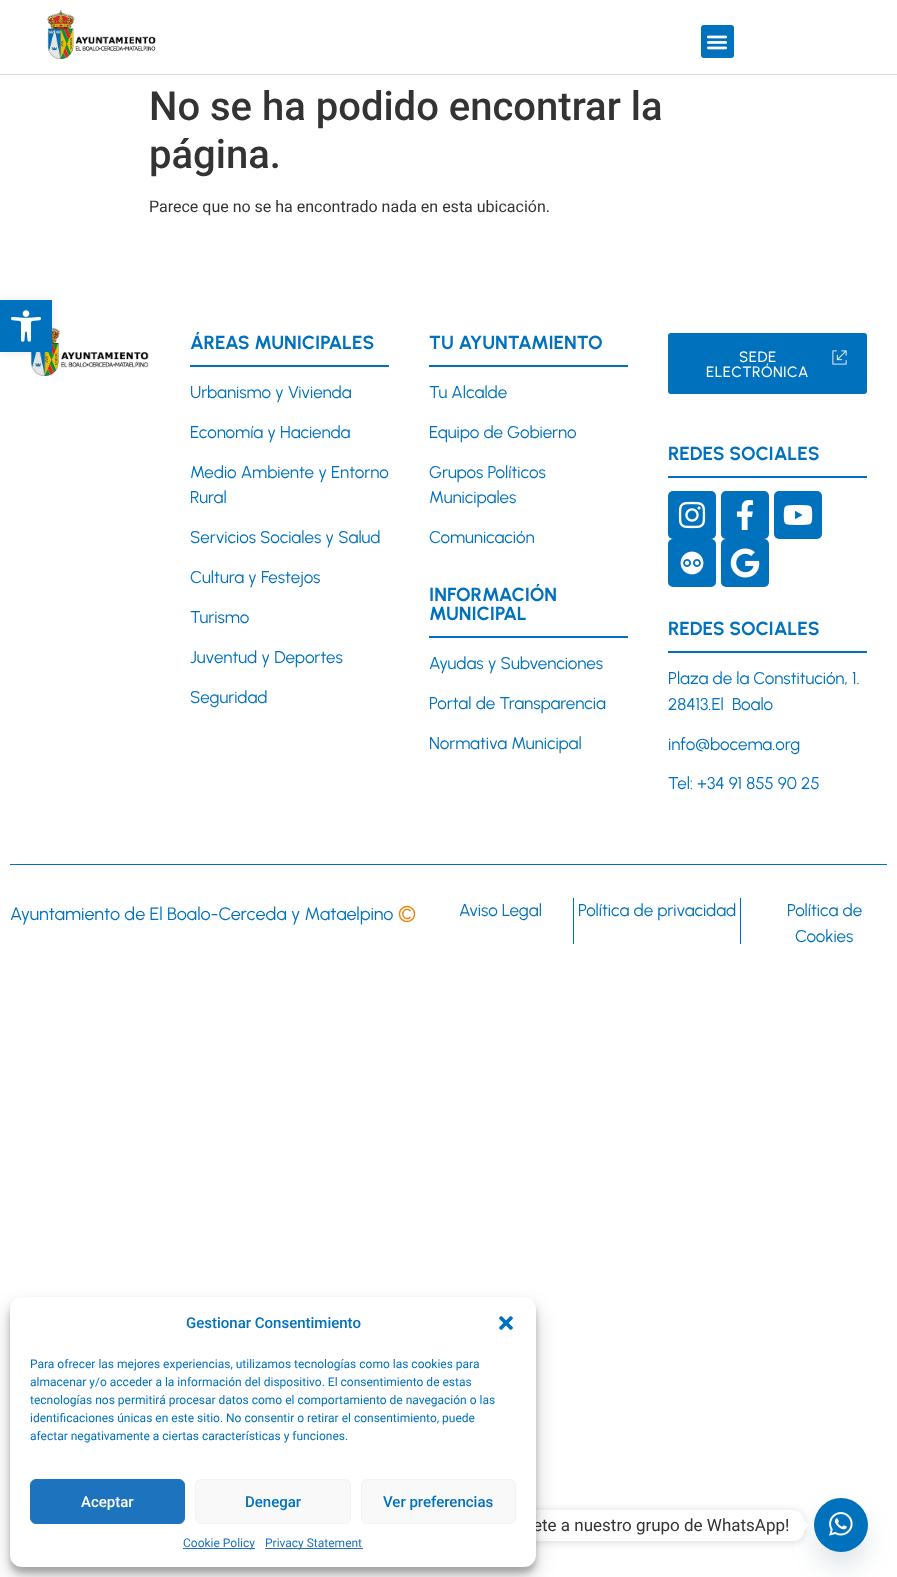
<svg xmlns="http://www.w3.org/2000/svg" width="897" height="1577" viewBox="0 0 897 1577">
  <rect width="100%" height="100%" fill="rgb(255,255,255)"/>
  <rect x="0" y="74" width="897" height="1" fill="rgb(218,218,218)"/>
  <image x="47" y="10" width="109" height="49" href="pic1.png"/>
  <rect x="701" y="25" width="33" height="33" rx="3" fill="rgb(0,113,188)"/>
  <image x="706" y="35" width="22" height="15" href="pic2.png"/>
  <g font-family="Roboto" font-size="40" font-weight="500" fill="rgb(51,51,51)">
    <text>
      <tspan x="149" y="120">No se ha podido encontrar la</tspan>
      <tspan x="149" y="168">página.</tspan>
    </text>
  </g>
  <text x="149" y="212" font-family="Roboto" font-size="16" fill="rgb(51,51,51)">Parece que no se ha encontrado nada en esta ubicación.</text>
  <image x="30" y="327" width="119" height="49" href="pic4.png"/>
  <rect x="0" y="300" width="52" height="52" fill="rgba(0,0,0,0.1)" filter="blur(5px)"/>
  <rect x="0" y="300" width="52" height="52" fill="rgb(0,113,188)"/>
  <image x="11" y="310" width="30" height="32" href="pic3.png"/>
  <text x="190" y="349" font-family="Urbanist" font-size="19" font-weight="bold" fill="rgb(0,113,188)">ÁREAS MUNICIPALES</text>
  <rect x="190" y="365" width="199" height="2" fill="rgb(0,113,188)"/>
  <g font-family="Urbanist" font-size="17" fill="rgb(0,113,188)">
    <text x="190" y="398">Urbanismo y Vivienda</text>
    <text x="190" y="438">Economía y Hacienda</text>
    <text>
      <tspan x="190" y="478">Medio Ambiente y Entorno</tspan>
      <tspan x="190" y="503">Rural</tspan>
    </text>
    <text x="190" y="543">Servicios Sociales y Salud</text>
    <text x="190" y="583">Cultura y Festejos</text>
    <text x="190" y="623">Turismo</text>
    <text x="190" y="663">Juventud y Deportes</text>
    <text x="190" y="703">Seguridad</text>
  </g>
  <text x="429" y="349" font-family="Urbanist" font-size="19" font-weight="bold" fill="rgb(0,113,188)">TU AYUNTAMIENTO</text>
  <rect x="429" y="365" width="199" height="2" fill="rgb(0,113,188)"/>
  <g font-family="Urbanist" font-size="17" fill="rgb(0,113,188)">
    <text x="429" y="398">Tu Alcalde</text>
    <text x="429" y="438">Equipo de Gobierno</text>
    <text>
      <tspan x="429" y="478">Grupos Políticos</tspan>
      <tspan x="429" y="503">Municipales</tspan>
    </text>
    <text x="429" y="543">Comunicación</text>
  </g>
  <g font-family="Urbanist" font-size="19" font-weight="bold" fill="rgb(0,113,188)">
    <text>
      <tspan x="429" y="601">INFORMACIÓN</tspan>
      <tspan x="429" y="620">MUNICIPAL</tspan>
    </text>
  </g>
  <rect x="429" y="636" width="199" height="2" fill="rgb(0,113,188)"/>
  <g font-family="Urbanist" font-size="17" fill="rgb(0,113,188)">
    <text x="429" y="669">Ayudas y Subvenciones</text>
    <text x="429" y="709">Portal de Transparencia</text>
    <text x="429" y="749">Normativa Municipal</text>
  </g>
  <rect x="668" y="333" width="199" height="61" rx="3" fill="rgb(0,113,188)"/>
  <g font-family="Urbanist" font-size="15" font-weight="500" letter-spacing="0.5" fill="rgb(255,255,255)">
    <text x="739" y="362">SEDE</text>
    <text x="706" y="377">ELECTRÓNICA</text>
  </g>
  <image x="832" y="350" width="15" height="15" href="pic5.png"/>
  <text x="668" y="460" font-family="Urbanist" font-size="19" font-weight="bold" fill="rgb(0,113,188)">REDES SOCIALES</text>
  <rect x="668" y="476" width="199" height="2" fill="rgb(0,113,188)"/>
  <rect x="668" y="491" width="48" height="48" rx="5" fill="rgb(0,113,188)"/>
  <image x="678" y="501" width="28" height="28" href="pic6.png"/>
  <rect x="721" y="491" width="48" height="48" rx="5" fill="rgb(0,113,188)"/>
  <image x="736" y="500" width="18" height="30" href="pic7.png"/>
  <rect x="774" y="491" width="48" height="48" rx="5" fill="rgb(0,113,188)"/>
  <image x="783" y="505" width="30" height="20" href="pic8.png"/>
  <rect x="668" y="539" width="48" height="48" rx="5" fill="rgb(0,113,188)"/>
  <image x="680" y="551" width="24" height="24" href="pic9.png"/>
  <rect x="721" y="539" width="48" height="48" rx="5" fill="rgb(0,113,188)"/>
  <image x="730" y="548" width="30" height="30" href="pic10.png"/>
  <text x="668" y="635" font-family="Urbanist" font-size="19" font-weight="bold" fill="rgb(0,113,188)">REDES SOCIALES</text>
  <rect x="668" y="651" width="199" height="2" fill="rgb(0,113,188)"/>
  <g font-family="Urbanist" font-size="17" fill="rgb(0,113,188)">
    <text>
      <tspan x="668" y="684">Plaza de la Constitución, 1.</tspan>
      <tspan x="668" y="710" word-spacing="4">28413.El Boalo</tspan>
    </text>
    <text x="668" y="750">info@bocema.org</text>
    <text x="668" y="789">Tel: +34 91 855 90 25</text>
  </g>
  <rect x="10" y="864" width="877" height="1" fill="rgb(0,113,188)"/>
  <text x="10" y="920" font-family="Urbanist" font-size="18" fill="rgb(0,113,188)">Ayuntamiento de El Boalo-Cerceda y Mataelpino</text>
  <text x="398" y="920" font-family="Urbanist" font-size="20" fill="rgb(238,133,14)">©</text>
  <text x="459" y="916" font-family="Urbanist" font-size="17" fill="rgb(0,113,188)">Aviso Legal</text>
  <rect x="740" y="898" width="1" height="46" fill="rgb(0,113,188)"/>
  <rect x="573" y="898" width="1" height="46" fill="rgb(0,113,188)"/>
  <g font-family="Urbanist" font-size="17" fill="rgb(0,113,188)">
    <text x="578" y="916">Política de privacidad</text>
    <text x="787" y="916">Política de</text>
    <text x="795" y="942">Cookies</text>
  </g>
  <rect x="814" y="1514" width="54" height="54" rx="27" fill="rgba(73,104,126,0.16)" filter="blur(12px)"/>
  <circle cx="841" cy="1525" r="27" fill="rgb(0,113,188)"/>
  <rect x="493" y="1511" width="311" height="31" rx="10" fill="rgba(0,0,0,0.15)" filter="blur(4px)"/>
  <rect x="493" y="1510" width="311" height="31" rx="10" fill="rgb(255,255,255)"/>
  <rect x="10" y="1303" width="526" height="270" rx="12" fill="rgba(0,0,0,0.23)" filter="blur(3px)"/>
  <rect x="10" y="1307" width="526" height="270" rx="12" fill="rgba(0,0,0,0.19)" filter="blur(10px)"/>
  <text x="533" y="1531" font-family="Roboto" font-size="17" fill="rgb(51,51,51)">ete a nuestro grupo de WhatsApp!</text>
  <rect x="10" y="1297" width="526" height="270" rx="12" fill="rgb(255,255,255)"/>
  <text x="186" y="1328" font-family="Roboto" font-size="15" font-weight="500" fill="rgb(0,113,188)">Gestionar Consentimiento</text>
  <image x="499" y="1316" width="14" height="14" href="pic11.png"/>
  <g font-family="Roboto" font-size="12" fill="rgb(0,113,188)">
    <text>
      <tspan x="30" y="1368">Para ofrecer las mejores experiencias, utilizamos tecnologías como las cookies para</tspan>
      <tspan x="30" y="1386">almacenar y/o acceder a la información del dispositivo. El consentimiento de estas</tspan>
      <tspan x="30" y="1404">tecnologías nos permitirá procesar datos como el comportamiento de navegación o las</tspan>
      <tspan x="30" y="1422">identificaciones únicas en este sitio. No consentir o retirar el consentimiento, puede</tspan>
      <tspan x="30" y="1440">afectar negativamente a ciertas características y funciones.</tspan>
    </text>
  </g>
  <rect x="30.5" y="1479.5" width="154" height="44" rx="5.5" fill="rgb(30,115,190)" stroke="rgb(30,115,190)"/>
  <text x="81" y="1507" font-family="Roboto" font-size="15" font-weight="500" fill="rgb(255,255,255)">Aceptar</text>
  <rect x="195.5" y="1479.5" width="155" height="44" rx="5.5" fill="rgb(249,249,249)" stroke="rgb(242,242,242)"/>
  <text x="245" y="1507" font-family="Roboto" font-size="15" font-weight="500" fill="rgb(0,113,188)">Denegar</text>
  <rect x="361.5" y="1479.5" width="154" height="44" rx="5.5" fill="rgb(249,249,249)" stroke="rgb(242,242,242)"/>
  <text x="383" y="1507" font-family="Roboto" font-size="15" font-weight="500" fill="rgb(0,113,188)">Ver preferencias</text>
  <rect x="183" y="1548" width="72" height="1" fill="rgb(30,115,190)"/>
  <text x="183" y="1547" font-family="Roboto" font-size="12" fill="rgb(30,115,190)">Cookie Policy</text>
  <rect x="265" y="1548" width="98" height="1" fill="rgb(30,115,190)"/>
  <text x="265" y="1547" font-family="Roboto" font-size="12" fill="rgb(30,115,190)">Privacy Statement</text>
  <path d="M804 1530.5V1520.5L809 1525.5Z" fill="rgb(255,255,255)"/>
  <image x="829" y="1512" width="24" height="24" href="pic12.png"/>
</svg>
